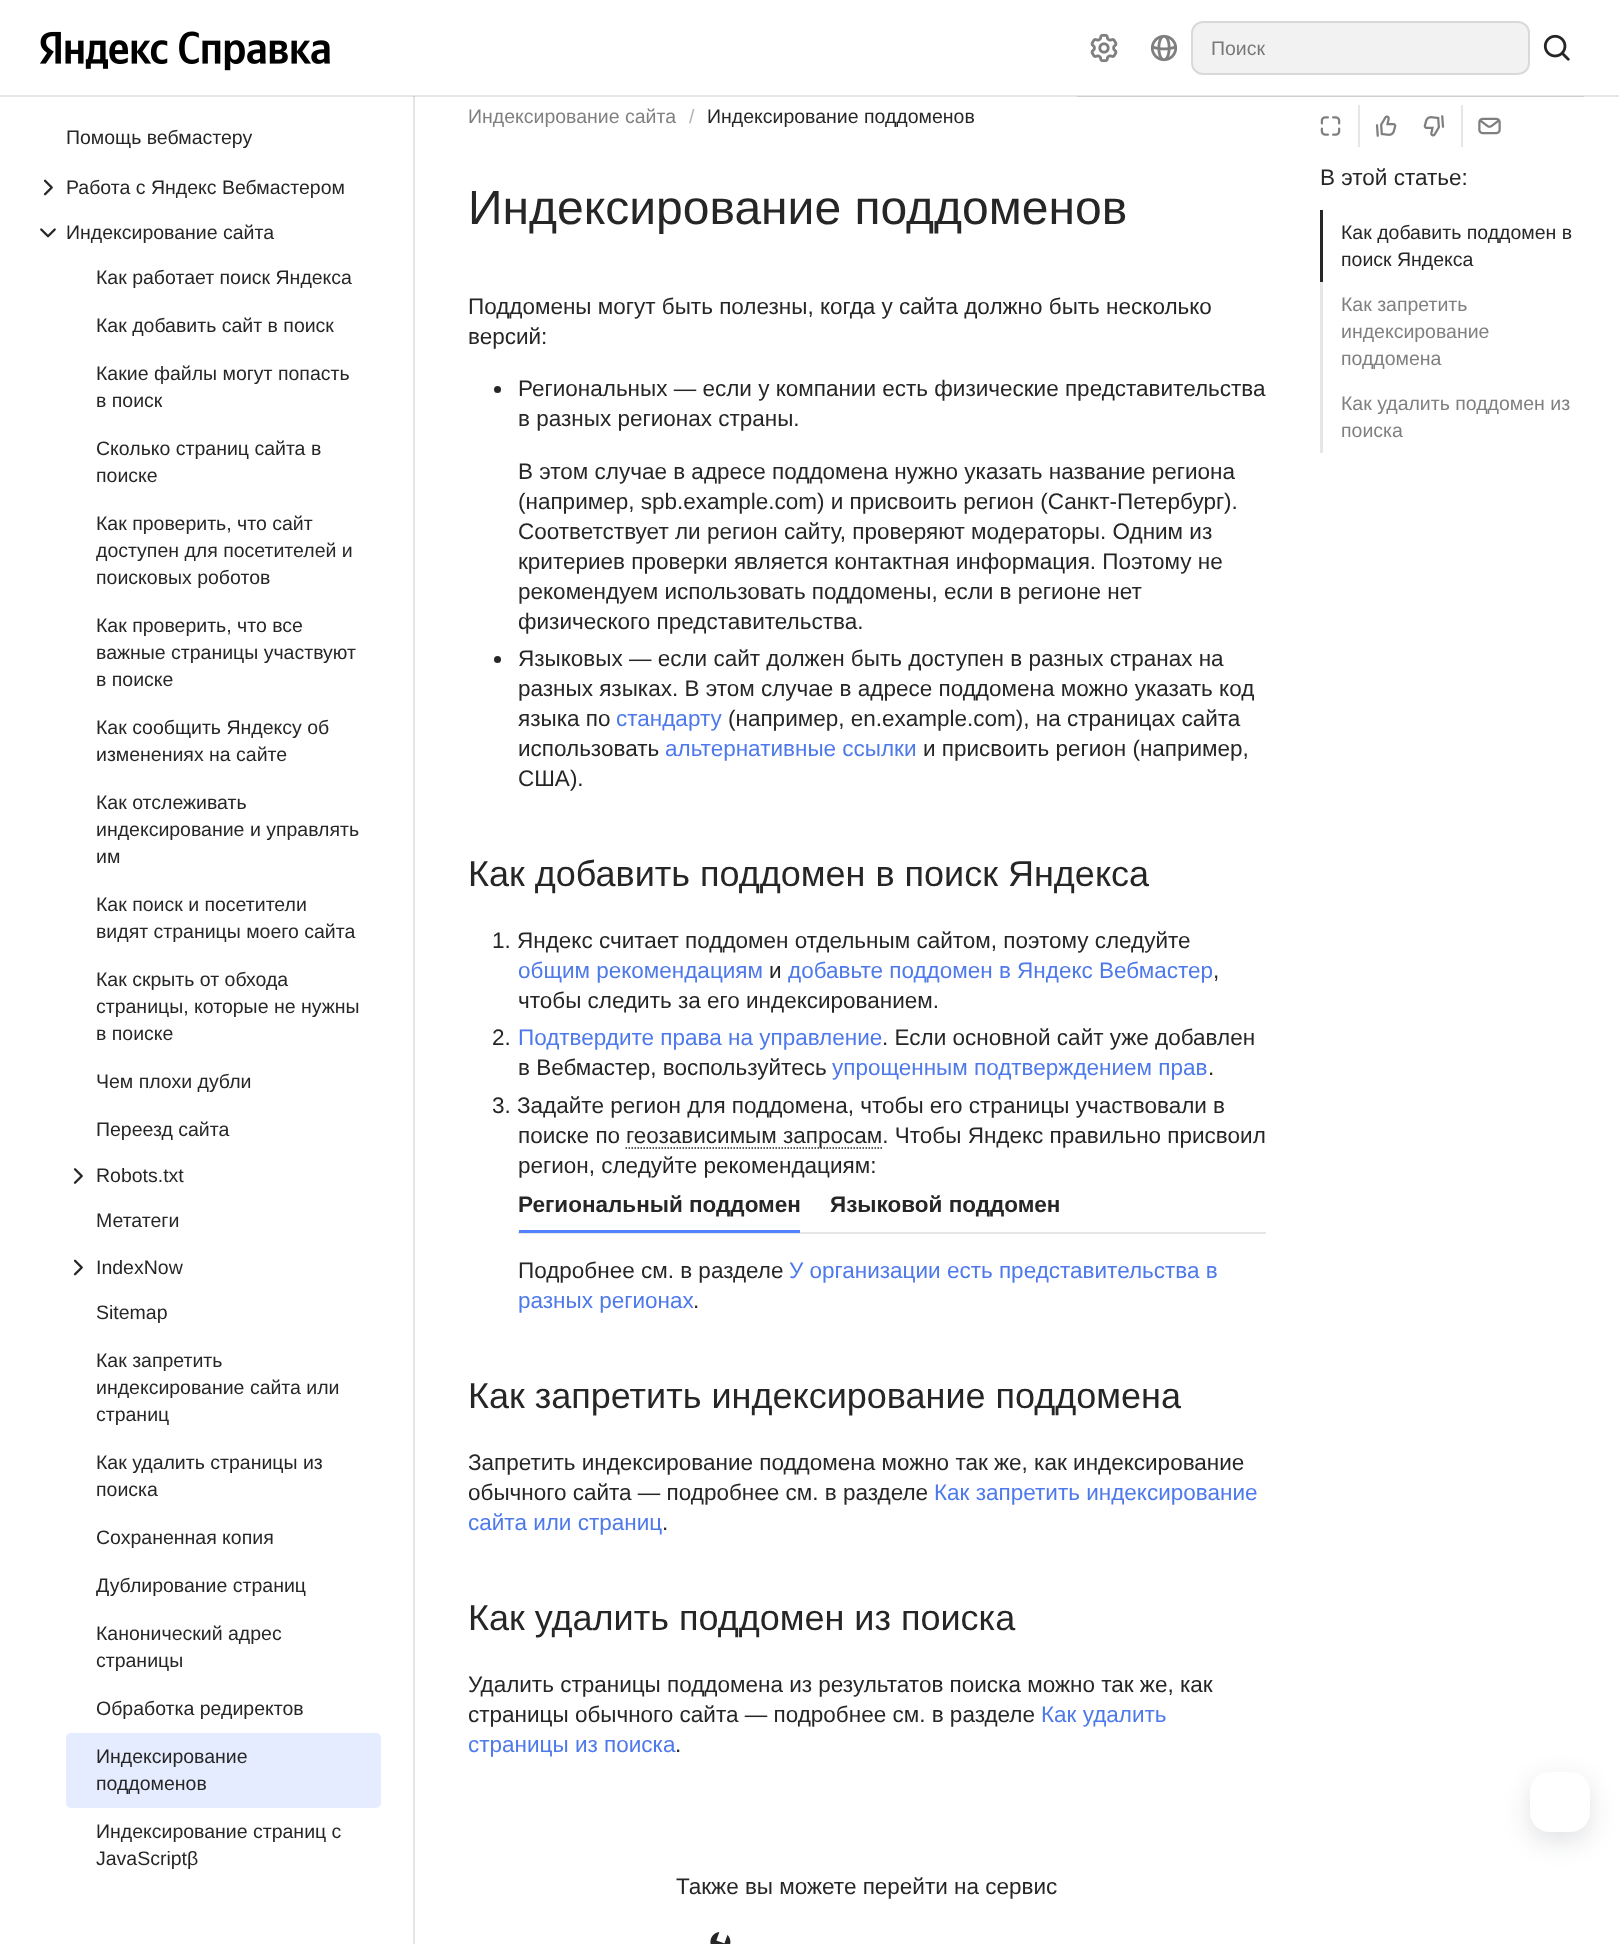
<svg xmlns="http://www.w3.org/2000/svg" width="1619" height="1944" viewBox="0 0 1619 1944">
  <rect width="100%" height="100%" fill="rgb(255,255,255)"/>
  <rect x="0" y="95" width="1619" height="2" fill="rgb(230,230,230)"/>
  <rect x="1077" y="96" width="507" height="1" fill="rgb(207,207,207)"/>
  <image x="40" y="31" width="290" height="40" href="pic1.png"/>
  <image x="1090" y="33" width="28" height="30" href="pic2.png"/>
  <image x="1150" y="34" width="28" height="28" href="pic3.png"/>
  <rect x="1191" y="21" width="339" height="54" rx="12" fill="rgb(242,242,242)"/>
  <rect x="1192" y="22" width="337" height="52" rx="11" fill="none" stroke="rgba(0,0,0,0.1)" stroke-width="2"/>
  <text x="1211" y="55" font-family="Liberation Sans" font-size="19.5" fill="rgb(121,121,121)">Поиск</text>
  <image x="1543" y="34" width="27" height="27" href="pic4.png"/>
  <rect x="413" y="96" width="2" height="1848" fill="rgb(230,230,230)"/>
  <rect x="413" y="96" width="2" height="1" fill="rgb(207,207,207)"/>
  <text x="66" y="144" font-family="Liberation Sans" font-size="19.5" fill="rgb(38,38,38)">Помощь вебмастеру</text>
  <image x="43" y="179" width="10" height="17" href="pic5.png"/>
  <text x="66" y="194" font-family="Liberation Sans" font-size="19.5" fill="rgb(38,38,38)">Работа с Яндекс Вебмастером</text>
  <image x="40" y="228" width="16" height="10" href="pic6.png"/>
  <g font-family="Liberation Sans" font-size="19.5" fill="rgb(38,38,38)">
    <text x="66" y="239">Индексирование сайта</text>
    <text x="96" y="284">Как работает поиск Яндекса</text>
    <text x="96" y="332">Как добавить сайт в поиск</text>
    <text>
      <tspan x="96" y="380">Какие файлы могут попасть</tspan>
      <tspan x="96" y="407">в поиск</tspan>
    </text>
    <text>
      <tspan x="96" y="455">Сколько страниц сайта в</tspan>
      <tspan x="96" y="482">поиске</tspan>
    </text>
    <text>
      <tspan x="96" y="530">Как проверить, что сайт</tspan>
      <tspan x="96" y="557">доступен для посетителей и</tspan>
      <tspan x="96" y="584">поисковых роботов</tspan>
    </text>
    <text>
      <tspan x="96" y="632">Как проверить, что все</tspan>
      <tspan x="96" y="659">важные страницы участвуют</tspan>
      <tspan x="96" y="686">в поиске</tspan>
    </text>
    <text>
      <tspan x="96" y="734">Как сообщить Яндексу об</tspan>
      <tspan x="96" y="761">изменениях на сайте</tspan>
    </text>
    <text>
      <tspan x="96" y="809">Как отслеживать</tspan>
      <tspan x="96" y="836">индексирование и управлять</tspan>
      <tspan x="96" y="863">им</tspan>
    </text>
    <text>
      <tspan x="96" y="911">Как поиск и посетители</tspan>
      <tspan x="96" y="938">видят страницы моего сайта</tspan>
    </text>
    <text>
      <tspan x="96" y="986">Как скрыть от обхода</tspan>
      <tspan x="96" y="1013">страницы, которые не нужны</tspan>
      <tspan x="96" y="1040">в поиске</tspan>
    </text>
    <text x="96" y="1088">Чем плохи дубли</text>
    <text x="96" y="1136">Переезд сайта</text>
  </g>
  <image x="73" y="1168" width="10" height="16" href="pic7.png"/>
  <g font-family="Liberation Sans" font-size="19.5" fill="rgb(38,38,38)">
    <text x="96" y="1182">Robots.txt</text>
    <text x="96" y="1227">Метатеги</text>
  </g>
  <image x="73" y="1259" width="10" height="17" href="pic5.png"/>
  <g font-family="Liberation Sans" font-size="19.5" fill="rgb(38,38,38)">
    <text x="96" y="1274">IndexNow</text>
    <text x="96" y="1319">Sitemap</text>
    <text>
      <tspan x="96" y="1367">Как запретить</tspan>
      <tspan x="96" y="1394">индексирование сайта или</tspan>
      <tspan x="96" y="1421">страниц</tspan>
    </text>
    <text>
      <tspan x="96" y="1469">Как удалить страницы из</tspan>
      <tspan x="96" y="1496">поиска</tspan>
    </text>
    <text x="96" y="1544">Сохраненная копия</text>
    <text x="96" y="1592">Дублирование страниц</text>
    <text>
      <tspan x="96" y="1640">Канонический адрес</tspan>
      <tspan x="96" y="1667">страницы</tspan>
    </text>
    <text x="96" y="1715">Обработка редиректов</text>
  </g>
  <rect x="66" y="1733" width="315" height="75" rx="5" fill="rgb(229,236,255)"/>
  <g font-family="Liberation Sans" font-size="19.5" fill="rgb(38,38,38)">
    <text>
      <tspan x="96" y="1763">Индексирование</tspan>
      <tspan x="96" y="1790">поддоменов</tspan>
    </text>
    <text>
      <tspan x="96" y="1838">Индексирование страниц с</tspan>
      <tspan x="96" y="1865">JavaScriptβ</tspan>
    </text>
  </g>
  <text x="468" y="123" font-family="Liberation Sans" font-size="19.5" fill="rgb(128,128,128)">Индексирование сайта</text>
  <text x="689" y="123" font-family="Liberation Sans" font-size="19.5" fill="rgb(179,179,179)">/</text>
  <text x="707" y="123" font-family="Liberation Sans" font-size="19.5" fill="rgb(38,38,38)">Индексирование поддоменов</text>
  <image x="1320" y="116" width="21" height="20" href="pic8.png"/>
  <rect x="1358" y="105" width="2" height="42" fill="rgb(230,230,230)"/>
  <image x="1375" y="115" width="22" height="22" href="pic9.png"/>
  <image x="1423" y="115" width="22" height="22" href="pic10.png"/>
  <rect x="1461" y="105" width="2" height="42" fill="rgb(230,230,230)"/>
  <image x="1478" y="117" width="23" height="18" href="pic11.png"/>
  <text x="468" y="224" font-family="Liberation Sans" font-size="48" fill="rgb(38,38,38)">Индексирование поддоменов</text>
  <g font-family="Liberation Sans" font-size="22.5" fill="rgb(38,38,38)">
    <text>
      <tspan x="468" y="314">Поддомены могут быть полезны, когда у сайта должно быть несколько</tspan>
      <tspan x="468" y="344">версий:</tspan>
    </text>
  </g>
  <circle cx="497.5" cy="389.5" r="3.5" fill="rgb(38,38,38)"/>
  <g font-family="Liberation Sans" font-size="22.5" fill="rgb(38,38,38)">
    <text>
      <tspan x="518" y="396">Региональных — если у компании есть физические представительства</tspan>
      <tspan x="518" y="426">в разных регионах страны.</tspan>
    </text>
    <text>
      <tspan x="518" y="479">В этом случае в адресе поддомена нужно указать название региона</tspan>
      <tspan x="518" y="509">(например, spb.example.com) и присвоить регион (Санкт-Петербург).</tspan>
      <tspan x="518" y="539">Соответствует ли регион сайту, проверяют модераторы. Одним из</tspan>
      <tspan x="518" y="569">критериев проверки является контактная информация. Поэтому не</tspan>
      <tspan x="518" y="599">рекомендуем использовать поддомены, если в регионе нет</tspan>
      <tspan x="518" y="629">физического представительства.</tspan>
    </text>
  </g>
  <circle cx="497.5" cy="659.5" r="3.5" fill="rgb(38,38,38)"/>
  <g font-family="Liberation Sans" font-size="22.5" fill="rgb(38,38,38)">
    <text>
      <tspan x="518" y="666">Языковых — если сайт должен быть доступен в разных странах на</tspan>
      <tspan x="518" y="696">разных языках. В этом случае в адресе поддомена можно указать код</tspan>
      <tspan x="518" y="726">языка по</tspan>
    </text>
  </g>
  <text x="616" y="726" font-family="Liberation Sans" font-size="22.5" fill="rgb(78,121,235)">стандарту</text>
  <g font-family="Liberation Sans" font-size="22.5" fill="rgb(38,38,38)">
    <text x="728" y="726">(например, en.example.com), на страницах сайта</text>
    <text x="518" y="756">использовать</text>
  </g>
  <text x="665" y="756" font-family="Liberation Sans" font-size="22.5" fill="rgb(78,121,235)">альтернативные ссылки</text>
  <g font-family="Liberation Sans" font-size="22.5" fill="rgb(38,38,38)">
    <text x="923" y="756">и присвоить регион (например,</text>
    <text x="518" y="786">США).</text>
  </g>
  <text x="468" y="886" font-family="Liberation Sans" font-size="36" fill="rgb(38,38,38)">Как добавить поддомен в поиск Яндекса</text>
  <text x="492" y="948" font-family="Liberation Sans" font-size="22.5" fill="rgb(38,38,38)">1. Яндекс считает поддомен отдельным сайтом, поэтому следуйте</text>
  <text x="518" y="978" font-family="Liberation Sans" font-size="22.5" fill="rgb(78,121,235)">общим рекомендациям</text>
  <text x="769" y="978" font-family="Liberation Sans" font-size="22.5" fill="rgb(38,38,38)">и</text>
  <text x="788" y="978" font-family="Liberation Sans" font-size="22.5" fill="rgb(78,121,235)">добавьте поддомен в Яндекс Вебмастер</text>
  <g font-family="Liberation Sans" font-size="22.5" fill="rgb(38,38,38)">
    <text x="1213" y="978">,</text>
    <text x="518" y="1008">чтобы следить за его индексированием.</text>
    <text x="492" y="1045">2.</text>
  </g>
  <text x="518" y="1045" font-family="Liberation Sans" font-size="22.5" fill="rgb(78,121,235)">Подтвердите права на управление</text>
  <g font-family="Liberation Sans" font-size="22.5" fill="rgb(38,38,38)">
    <text x="882" y="1045">. Если основной сайт уже добавлен</text>
    <text x="518" y="1075">в Вебмастер, воспользуйтесь</text>
  </g>
  <text x="832" y="1075" font-family="Liberation Sans" font-size="22.5" fill="rgb(78,121,235)">упрощенным подтверждением прав</text>
  <g font-family="Liberation Sans" font-size="22.5" fill="rgb(38,38,38)">
    <text x="1208" y="1075">.</text>
    <text x="492" y="1113">3. Задайте регион для поддомена, чтобы его страницы участвовали в</text>
    <text x="518" y="1143">поиске по</text>
  </g>
  <path d="M625.5 1148H882" fill="none" stroke="rgb(38,38,38)" stroke-width="1.5" stroke-dasharray="1.5 1.5"/>
  <g font-family="Liberation Sans" font-size="22.5" fill="rgb(38,38,38)">
    <text x="626" y="1143">геозависимым запросам. Чтобы Яндекс правильно присвоил</text>
    <text x="518" y="1173">регион, следуйте рекомендациям:</text>
  </g>
  <rect x="518" y="1232" width="748" height="2" fill="rgb(230,230,230)"/>
  <rect x="519" y="1230" width="281" height="3" fill="rgb(82,130,255)"/>
  <g font-family="Liberation Sans" font-size="22.5" font-weight="bold" fill="rgb(38,38,38)">
    <text x="518" y="1212">Региональный поддомен</text>
    <text x="830" y="1212">Языковой поддомен</text>
  </g>
  <text x="518" y="1278" font-family="Liberation Sans" font-size="22.5" fill="rgb(38,38,38)">Подробнее см. в разделе</text>
  <g font-family="Liberation Sans" font-size="22.5" fill="rgb(78,121,235)">
    <text x="789" y="1278">У организации есть представительства в</text>
    <text x="518" y="1308">разных регионах</text>
  </g>
  <text x="693" y="1308" font-family="Liberation Sans" font-size="22.5" fill="rgb(38,38,38)">.</text>
  <text x="468" y="1408" font-family="Liberation Sans" font-size="36" fill="rgb(38,38,38)">Как запретить индексирование поддомена</text>
  <g font-family="Liberation Sans" font-size="22.5" fill="rgb(38,38,38)">
    <text>
      <tspan x="468" y="1470">Запретить индексирование поддомена можно так же, как индексирование</tspan>
      <tspan x="468" y="1500">обычного сайта — подробнее см. в разделе</tspan>
    </text>
  </g>
  <g font-family="Liberation Sans" font-size="22.5" fill="rgb(78,121,235)">
    <text x="934" y="1500">Как запретить индексирование</text>
    <text x="468" y="1530">сайта или страниц</text>
  </g>
  <text x="662" y="1530" font-family="Liberation Sans" font-size="22.5" fill="rgb(38,38,38)">.</text>
  <text x="468" y="1630" font-family="Liberation Sans" font-size="36" fill="rgb(38,38,38)">Как удалить поддомен из поиска</text>
  <g font-family="Liberation Sans" font-size="22.5" fill="rgb(38,38,38)">
    <text>
      <tspan x="468" y="1692">Удалить страницы поддомена из результатов поиска можно так же, как</tspan>
      <tspan x="468" y="1722">страницы обычного сайта — подробнее см. в разделе</tspan>
    </text>
  </g>
  <g font-family="Liberation Sans" font-size="22.5" fill="rgb(78,121,235)">
    <text x="1041" y="1722">Как удалить</text>
    <text x="468" y="1752">страницы из поиска</text>
  </g>
  <g font-family="Liberation Sans" font-size="22.5" fill="rgb(38,38,38)">
    <text x="675" y="1752">.</text>
    <text x="676" y="1894">Также вы можете перейти на сервис</text>
  </g>
  <image x="710" y="1932" width="21" height="12" href="pic12.png"/>
  <text x="1320" y="185" font-family="Liberation Sans" font-size="22.5" fill="rgb(38,38,38)">В этой статье:</text>
  <rect x="1320" y="210" width="3" height="72" fill="rgb(38,38,38)"/>
  <g font-family="Liberation Sans" font-size="19.5" fill="rgb(38,38,38)">
    <text>
      <tspan x="1341" y="239">Как добавить поддомен в</tspan>
      <tspan x="1341" y="266">поиск Яндекса</tspan>
    </text>
  </g>
  <rect x="1320" y="282" width="3" height="171" fill="rgb(230,230,230)"/>
  <g font-family="Liberation Sans" font-size="19.5" fill="rgb(128,128,128)">
    <text>
      <tspan x="1341" y="311">Как запретить</tspan>
      <tspan x="1341" y="338">индексирование</tspan>
      <tspan x="1341" y="365">поддомена</tspan>
    </text>
    <text>
      <tspan x="1341" y="410">Как удалить поддомен из</tspan>
      <tspan x="1341" y="437">поиска</tspan>
    </text>
  </g>
  <rect x="1530" y="1781" width="60" height="60" rx="20" fill="rgba(14,21,47,0.13)" filter="blur(13.5px)"/>
  <rect x="1530" y="1772" width="60" height="60" rx="20" fill="rgb(255,255,255)"/>
</svg>
